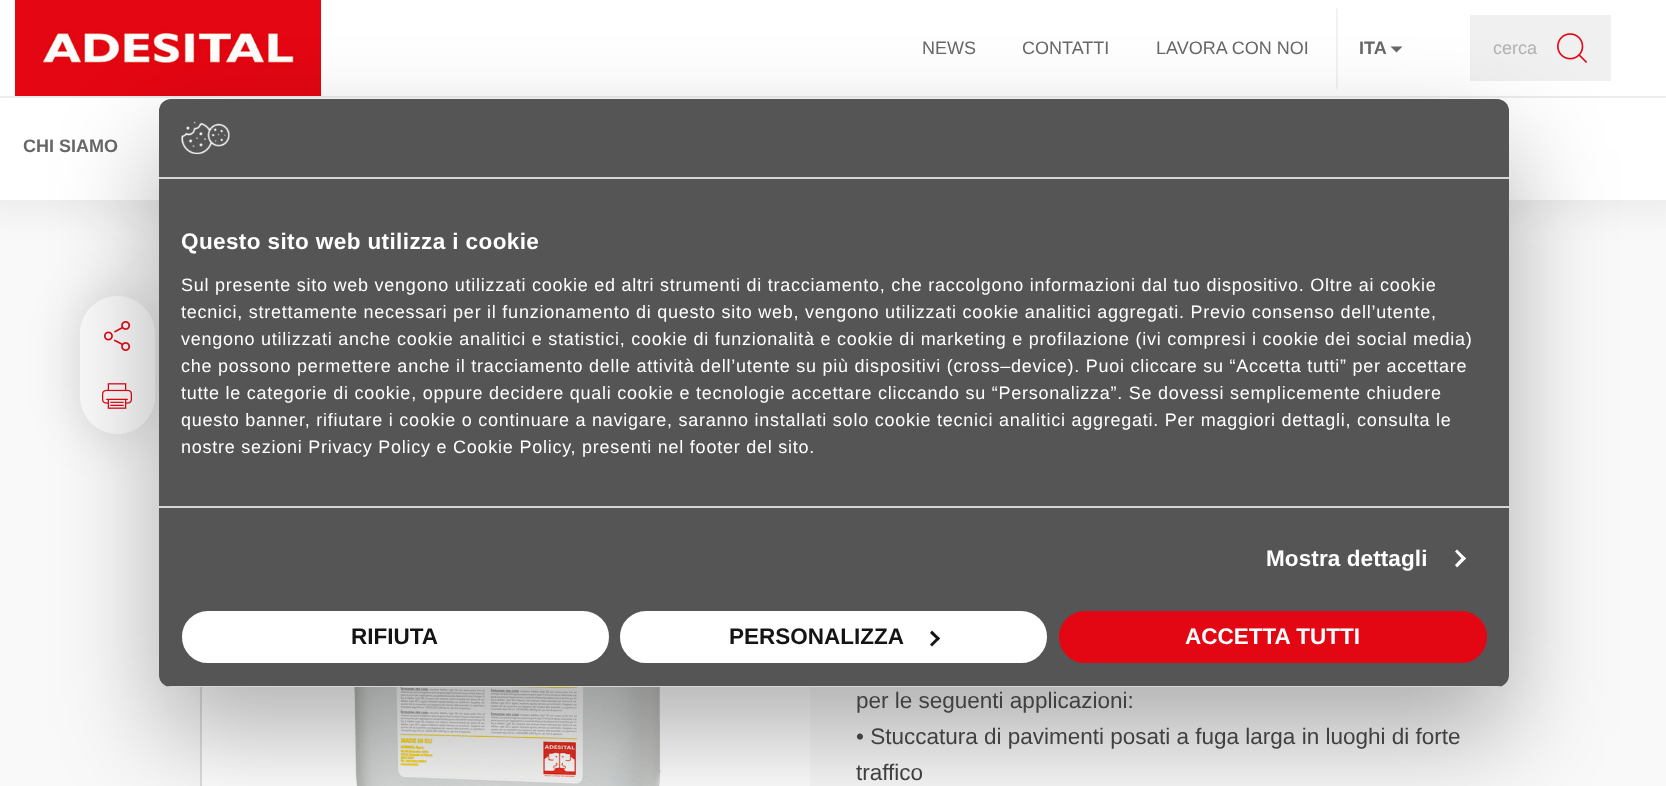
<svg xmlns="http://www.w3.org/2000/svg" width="1666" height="786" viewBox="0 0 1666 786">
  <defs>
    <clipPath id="clip1"><path d="M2 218H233V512H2ZM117.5 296C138 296 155 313 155 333.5V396.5C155 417 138 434 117.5 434C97 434 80 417 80 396.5V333.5C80 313 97 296 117.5 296Z" clip-rule="evenodd"/></clipPath>
    <clipPath id="clip2"><rect x="200" y="354" width="610" height="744"/></clipPath>
    <clipPath id="clip3"><rect x="159" y="99" width="1350" height="588" rx="12"/></clipPath>
  </defs>
  <rect width="100%" height="100%" fill="rgb(249,249,249)"/>
  <rect x="-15" y="-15" width="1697" height="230" fill="rgba(0,0,0,0.05)" filter="blur(15px)"/>
  <rect x="0" y="0" width="1666" height="96" fill="rgb(255,255,255)"/>
  <image x="15" y="0" width="306" height="96" href="pic1.png"/>
  <g font-family="Liberation Sans" font-size="18" fill="rgb(104,104,104)">
    <text x="922" y="54">NEWS</text>
    <text x="1022" y="54">CONTATTI</text>
    <text x="1156" y="54">LAVORA CON NOI</text>
  </g>
  <path d="M1336 90V8L1338 9V88Z" fill="rgb(242,242,242)"/>
  <text x="1359" y="54" font-family="Liberation Sans" font-size="18" font-weight="bold" fill="rgb(104,104,104)">ITA</text>
  <path d="M1390.5 46.5H1402.5L1396.5 52.5Z" fill="rgb(104,104,104)"/>
  <rect x="1470" y="15" width="141" height="66" fill="rgb(240,240,240)"/>
  <text x="1493" y="54" font-family="Liberation Sans" font-size="18" fill="rgb(178,178,178)">cerca</text>
  <image x="1557" y="33" width="30" height="30" href="pic2.png"/>
  <rect x="0" y="98" width="1666" height="102" fill="rgb(255,255,255)"/>
  <text x="23" y="152" font-family="Liberation Sans" font-size="18" font-weight="bold" fill="rgb(104,104,104)">CHI SIAMO</text>
  <g clip-path="url(#clip1)">
    <rect x="71" y="287" width="93" height="156" rx="46.5" fill="rgba(0,0,0,0.1)" filter="blur(22.5px)"/>
  </g>
  <image x="104" y="321" width="27" height="30" href="pic4.png"/>
  <image x="102" y="383" width="30" height="26" href="pic5.png"/>
  <rect x="202" y="687" width="608" height="99" fill="rgb(255,255,255)"/>
  <g clip-path="url(#clip2)">
    <rect x="201" y="355" width="610" height="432" fill="none" stroke="rgb(221,221,221)" stroke-width="2"/>
  </g>
  <image x="353" y="687" width="308" height="99" href="pic6.png"/>
  <rect x="159" y="147" width="1350" height="588" rx="12" fill="rgba(0,0,0,0.3)" filter="blur(51px)"/>
  <rect x="159" y="99" width="1350" height="588" rx="12" fill="rgb(85,85,85)"/>
  <rect x="159" y="177" width="1350" height="2" fill="rgb(214,214,214)"/>
  <image x="181" y="121" width="49" height="34" href="pic3.png"/>
  <rect x="159" y="506" width="1350" height="2" fill="rgb(214,214,214)"/>
  <text x="181" y="249" font-family="Liberation Sans" font-size="22.5" font-weight="bold" letter-spacing="0.4" fill="rgb(255,255,255)">Questo sito web utilizza i cookie</text>
  <g font-family="Liberation Sans" font-size="18" letter-spacing="0.75" fill="rgb(255,255,255)">
    <text>
      <tspan x="181" y="291">Sul presente sito web vengono utilizzati cookie ed altri strumenti di tracciamento, che raccolgono informazioni dal tuo dispositivo. Oltre ai cookie</tspan>
      <tspan x="181" y="318">tecnici, strettamente necessari per il funzionamento di questo sito web, vengono utilizzati cookie analitici aggregati. Previo consenso dell’utente,</tspan>
      <tspan x="181" y="345">vengono utilizzati anche cookie analitici e statistici, cookie di funzionalità e cookie di marketing e profilazione (ivi compresi i cookie dei social media)</tspan>
      <tspan x="181" y="372">che possono permettere anche il tracciamento delle attività dell’utente su più dispositivi (cross–device). Puoi cliccare su “Accetta tutti” per accettare</tspan>
      <tspan x="181" y="399">tutte le categorie di cookie, oppure decidere quali cookie e tecnologie accettare cliccando su “Personalizza”. Se dovessi semplicemente chiudere</tspan>
      <tspan x="181" y="426">questo banner, rifiutare i cookie o continuare a navigare, saranno installati solo cookie tecnici analitici aggregati. Per maggiori dettagli, consulta le</tspan>
      <tspan x="181" y="453">nostre sezioni Privacy Policy e Cookie Policy, presenti nel footer del sito.</tspan>
    </text>
  </g>
  <text x="1266" y="566" font-family="Liberation Sans" font-size="22.5" font-weight="bold" letter-spacing="0.1" fill="rgb(255,255,255)">Mostra dettagli</text>
  <path d="M1457 549.5L1466 558.5L1463.5 560.5L1455 551.5Z" fill="rgb(255,255,255)"/>
  <path d="M1463.5 556L1466 558.5L1457 567.5L1455 565Z" fill="rgb(255,255,255)"/>
  <g clip-path="url(#clip3)">
    <rect x="159" y="686" width="1350" height="1" fill="rgb(214,214,214)"/>
  </g>
  <rect x="183.5" y="612.5" width="424" height="49" rx="24.5" fill="rgb(255,255,255)" stroke="rgb(255,255,255)" stroke-width="3"/>
  <text x="351" y="644" font-family="Liberation Sans" font-size="22.5" font-weight="bold" fill="rgb(20,20,20)">RIFIUTA</text>
  <rect x="621.5" y="612.5" width="424" height="49" rx="24.5" fill="rgb(255,255,255)" stroke="rgb(255,255,255)" stroke-width="3"/>
  <text x="729" y="644" font-family="Liberation Sans" font-size="22.5" font-weight="bold" fill="rgb(20,20,20)">PERSONALIZZA</text>
  <path d="M932 630.5L940 638.5L938 640.5L930 633Z" fill="rgb(20,20,20)"/>
  <path d="M938 636.5L940 638.5L932 646.5L930 644.5Z" fill="rgb(20,20,20)"/>
  <rect x="1060.5" y="612.5" width="425" height="49" rx="24.5" fill="rgb(227,6,19)" stroke="rgb(227,6,19)" stroke-width="3"/>
  <text x="1185" y="644" font-family="Liberation Sans" font-size="22.5" font-weight="bold" fill="rgb(255,255,255)">ACCETTA TUTTI</text>
  <g font-family="Liberation Sans" font-size="22.5" fill="rgb(64,64,64)">
    <text>
      <tspan x="856" y="708">per le seguenti applicazioni:</tspan>
      <tspan x="856" y="744">• Stuccatura di pavimenti posati a fuga larga in luoghi di forte</tspan>
      <tspan x="856" y="780">traffico</tspan>
    </text>
  </g>
</svg>
